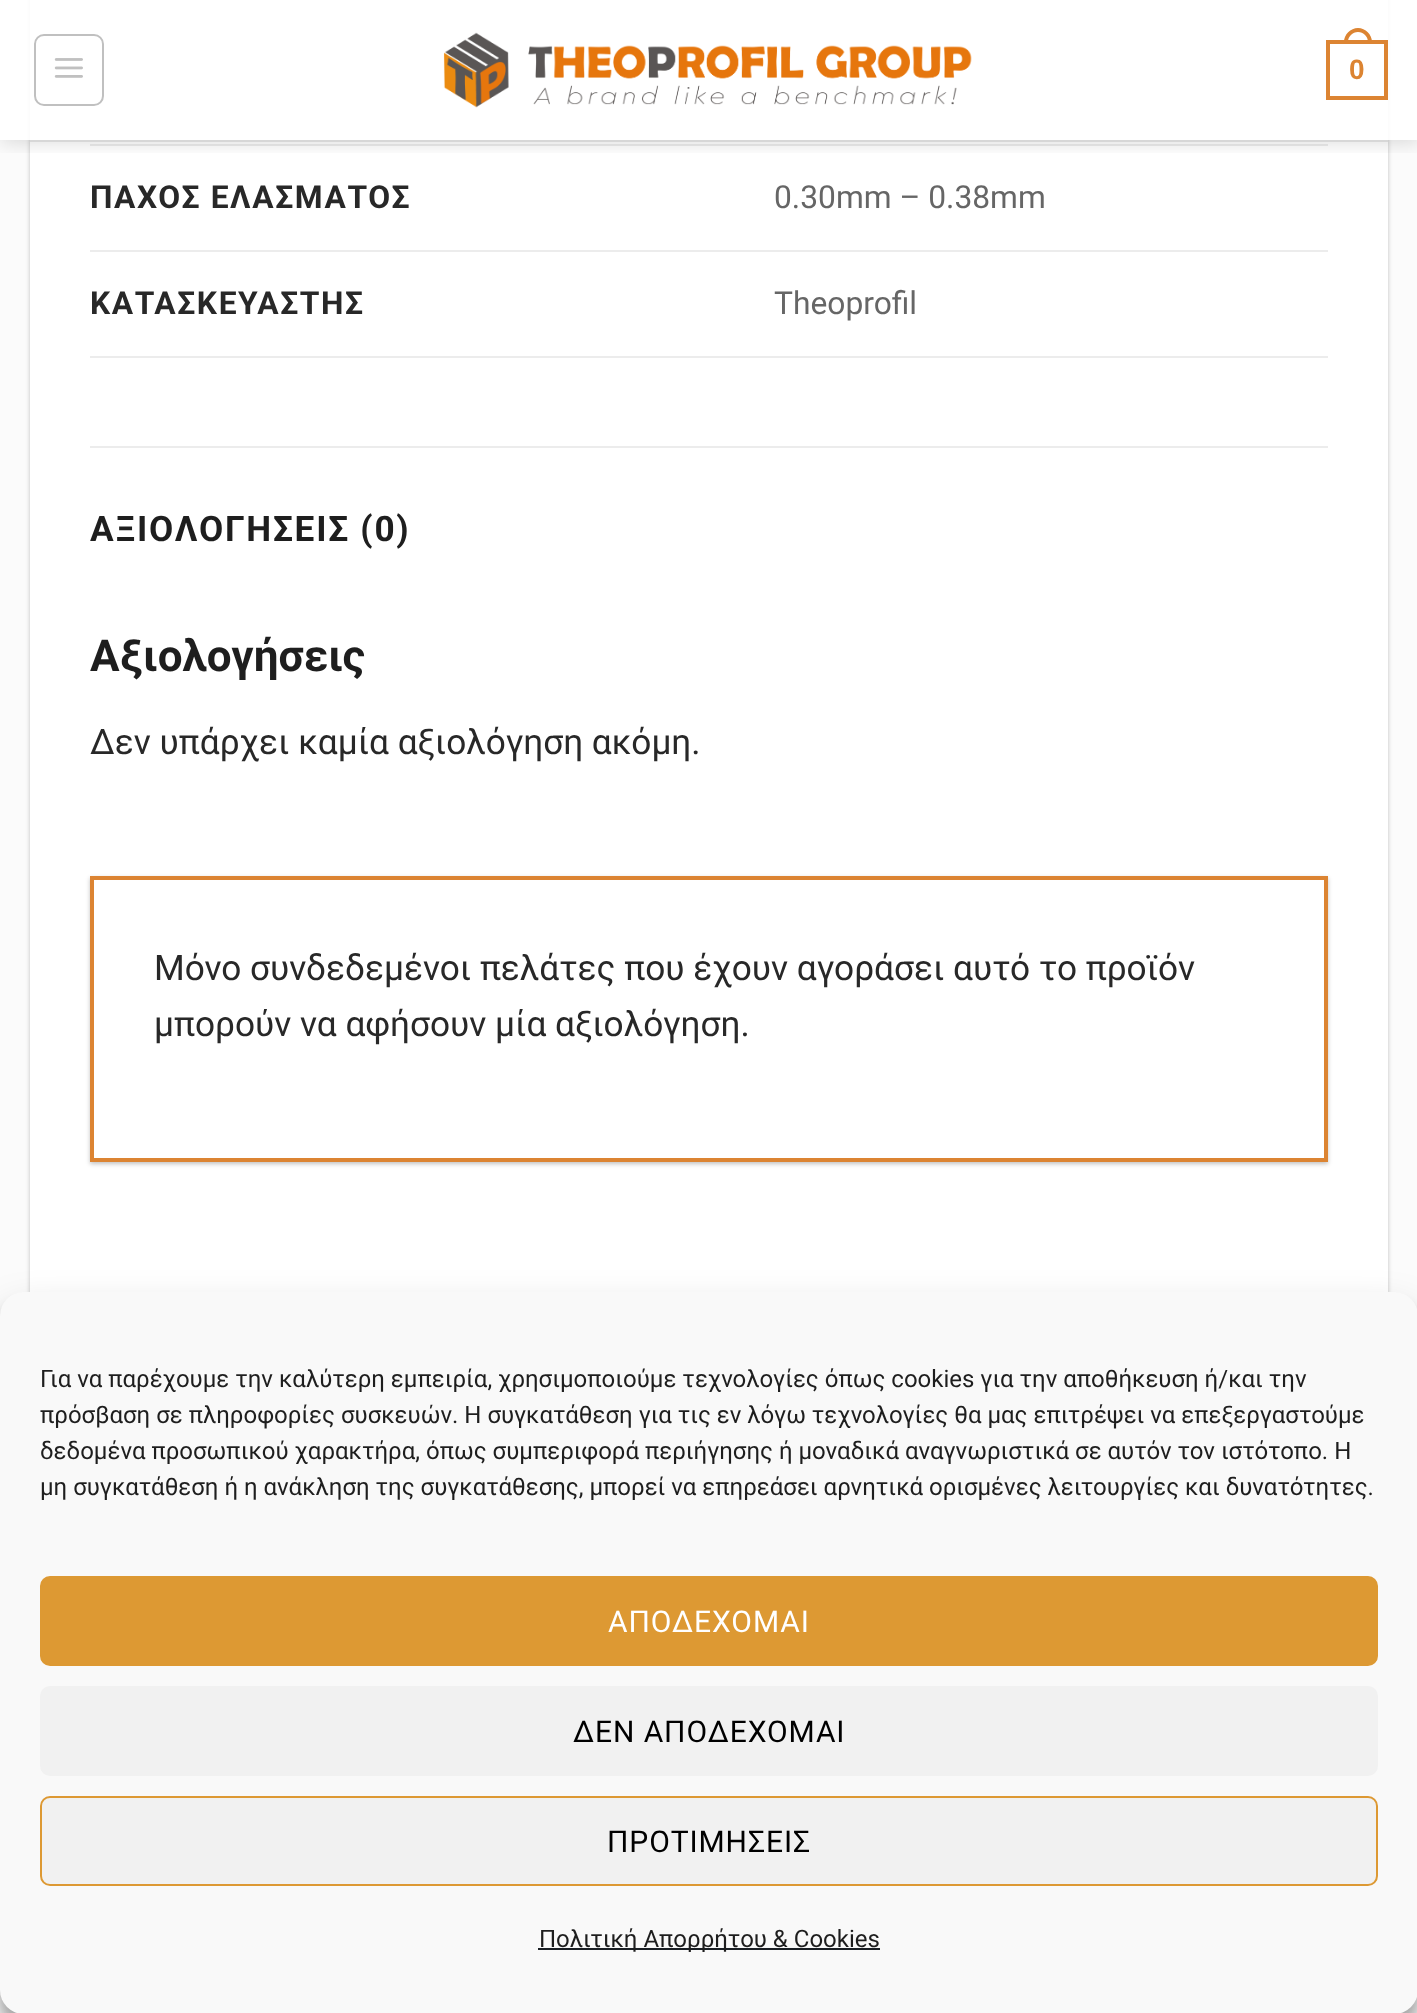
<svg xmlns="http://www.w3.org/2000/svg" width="1417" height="2013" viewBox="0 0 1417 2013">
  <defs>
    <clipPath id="clip1"><rect x="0" y="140" width="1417" height="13"/></clipPath>
    <clipPath id="clip2"><path d="M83 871H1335V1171H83ZM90 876H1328V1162H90Z" clip-rule="evenodd"/></clipPath>
  </defs>
  <rect width="100%" height="100%" fill="rgb(251,251,251)"/>
  <rect x="30" y="-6" width="1358" height="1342" fill="rgba(0,0,0,0.24)" filter="blur(2px)"/>
  <rect x="30" y="0" width="1358" height="1292" fill="rgb(255,255,255)"/>
  <rect x="90" y="144" width="1238" height="2" fill="rgb(236,236,236)"/>
  <g clip-path="url(#clip1)">
    <rect x="2" y="2" width="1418" height="140" fill="rgba(0,0,0,0.15)" filter="blur(10px)"/>
  </g>
  <rect x="0" y="0" width="1417" height="140" fill="rgba(255,255,255,0.9)"/>
  <rect x="35" y="35" width="68" height="70" rx="9" fill="none" stroke="rgb(192,192,192)" stroke-width="2"/>
  <image x="54" y="58" width="29" height="20" href="pic1.png"/>
  <image x="443" y="32" width="529" height="76" href="pic2.png"/>
  <rect x="1328" y="42" width="58" height="56" fill="none" stroke="rgb(220,132,50)" stroke-width="4"/>
  <path d="M1358 28C1365.5 28 1372 34.5 1372 42V44H1344V42C1344 34.5 1350.5 28 1358 28ZM1358 32C1363.5 32 1368 36.5 1368 42V44H1348V42C1348 36.5 1352.5 32 1358 32Z" fill="rgb(220,132,50)" fill-rule="evenodd"/>
  <text x="1349" y="79" font-family="Liberation Sans" font-size="28" font-weight="bold" fill="rgb(220,132,50)">0</text>
  <rect x="30" y="140" width="1358" height="2" fill="rgb(215,215,215)"/>
  <rect x="90" y="250" width="1238" height="2" fill="rgb(236,236,236)"/>
  <text x="90" y="208" font-family="Roboto" font-size="31.75" font-weight="bold" letter-spacing="1.6" fill="rgb(40,40,40)">ΠΑΧΟΣ ΕΛΑΣΜΑΤΟΣ</text>
  <text x="774" y="208" font-family="Roboto" font-size="31.75" fill="rgb(102,102,102)">0.30mm – 0.38mm</text>
  <rect x="90" y="356" width="1238" height="2" fill="rgb(236,236,236)"/>
  <text x="90" y="314" font-family="Roboto" font-size="31.75" font-weight="bold" letter-spacing="1.6" fill="rgb(40,40,40)">ΚΑΤΑΣΚΕΥΑΣΤΗΣ</text>
  <text x="774" y="314" font-family="Roboto" font-size="31.75" fill="rgb(102,102,102)">Theoprofil</text>
  <rect x="90" y="446" width="1238" height="2" fill="rgb(236,236,236)"/>
  <text x="90" y="541" font-family="Roboto" font-size="35.2" font-weight="bold" letter-spacing="1.75" fill="rgb(30,30,30)">ΑΞΙΟΛΟΓΗΣΕΙΣ (0)</text>
  <text x="90" y="671" font-family="Roboto" font-size="44" font-weight="bold" fill="rgb(30,30,30)">Αξιολογήσεις</text>
  <text x="90" y="754" font-family="Roboto" font-size="35.2" fill="rgb(40,40,40)">Δεν υπάρχει καμία αξιολόγηση ακόμη.</text>
  <g clip-path="url(#clip2)">
    <rect x="90" y="878" width="1238" height="286" fill="rgba(0,0,0,0.24)" filter="blur(2px)"/>
  </g>
  <rect x="92" y="878" width="1234" height="282" fill="none" stroke="rgb(220,132,50)" stroke-width="4"/>
  <g font-family="Roboto" font-size="35.2" fill="rgb(40,40,40)">
    <text>
      <tspan x="154" y="980">Μόνο συνδεδεμένοι πελάτες που έχουν αγοράσει αυτό το προϊόν</tspan>
      <tspan x="154" y="1036">μπορούν να αφήσουν μία αξιολόγηση.</tspan>
    </text>
  </g>
  <rect x="0" y="1304" width="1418" height="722" rx="24" fill="rgba(0,0,0,0.23)" filter="blur(6px)"/>
  <rect x="0" y="1312" width="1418" height="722" rx="24" fill="rgba(0,0,0,0.19)" filter="blur(20px)"/>
  <rect x="0" y="1292" width="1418" height="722" rx="24" fill="rgb(249,249,249)"/>
  <g font-family="Roboto" font-size="24" fill="rgb(30,30,30)">
    <text>
      <tspan x="40" y="1387">Για να παρέχουμε την καλύτερη εμπειρία, χρησιμοποιούμε τεχνολογίες όπως cookies για την αποθήκευση ή/και την</tspan>
      <tspan x="40" y="1423">πρόσβαση σε πληροφορίες συσκευών. Η συγκατάθεση για τις εν λόγω τεχνολογίες θα μας επιτρέψει να επεξεργαστούμε</tspan>
      <tspan x="40" y="1459">δεδομένα προσωπικού χαρακτήρα, όπως συμπεριφορά περιήγησης ή μοναδικά αναγνωριστικά σε αυτόν τον ιστότοπο. Η</tspan>
      <tspan x="40" y="1495">μη συγκατάθεση ή η ανάκληση της συγκατάθεσης, μπορεί να επηρεάσει αρνητικά ορισμένες λειτουργίες και δυνατότητες.</tspan>
    </text>
  </g>
  <rect x="41" y="1577" width="1336" height="88" rx="9" fill="rgb(221,153,51)" stroke="rgb(221,153,51)" stroke-width="2"/>
  <text x="608" y="1632" font-family="Roboto" font-size="30" letter-spacing="0.9" fill="rgb(255,255,255)">ΑΠΟΔΕΧΟΜΑΙ</text>
  <rect x="40" y="1686" width="1338" height="90" rx="10" fill="rgb(241,241,241)"/>
  <text x="573" y="1742" font-family="Roboto" font-size="30" letter-spacing="0.9" fill="rgb(0,0,0)">ΔΕΝ ΑΠΟΔΕΧΟΜΑΙ</text>
  <rect x="41" y="1797" width="1336" height="88" rx="9" fill="rgb(241,241,241)" stroke="rgb(221,153,51)" stroke-width="2"/>
  <text x="607" y="1852" font-family="Roboto" font-size="30" letter-spacing="0.9" fill="rgb(0,0,0)">ΠΡΟΤΙΜΗΣΕΙΣ</text>
  <rect x="538" y="1948" width="342" height="2" fill="rgb(25,30,35)"/>
  <text x="539" y="1947" font-family="Roboto" font-size="24" fill="rgb(30,30,30)">Πολιτική Απορρήτου &amp; Cookies</text>
</svg>
